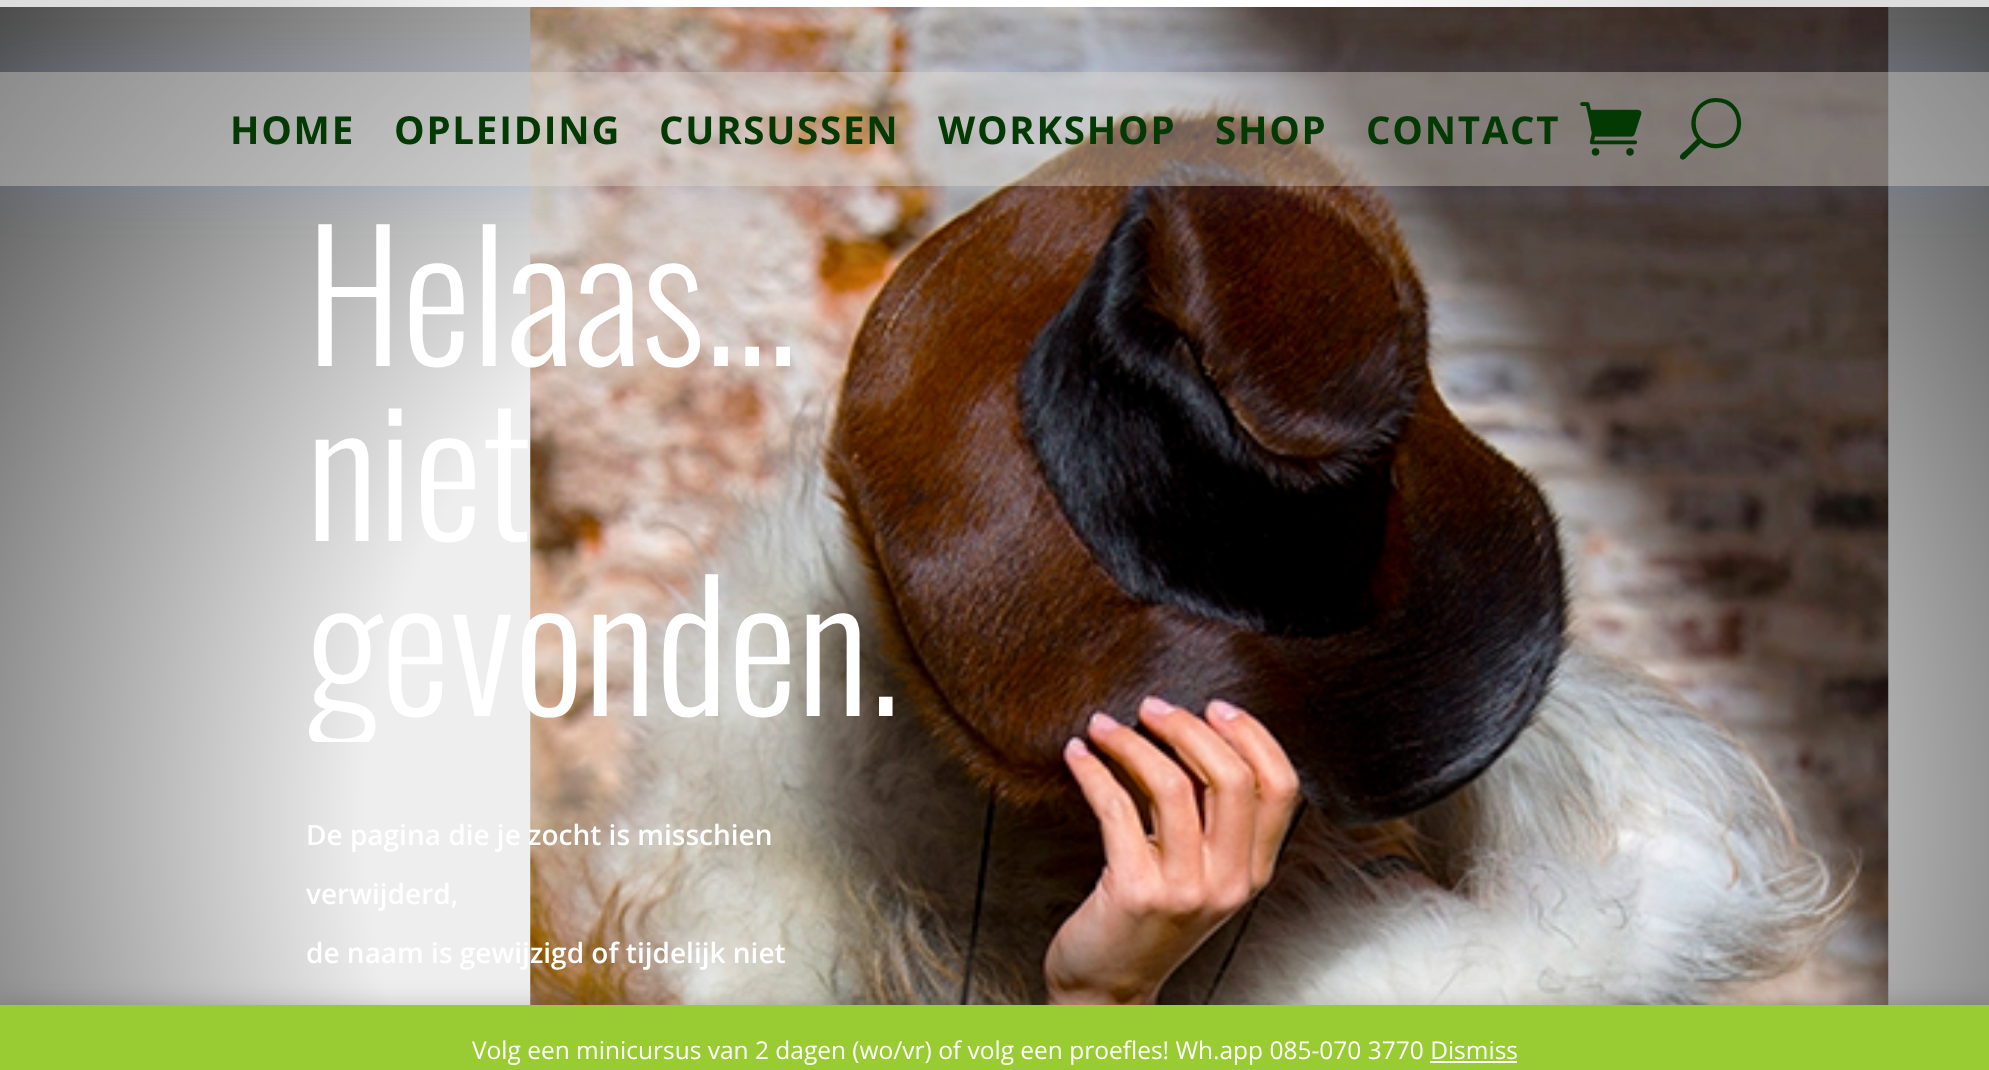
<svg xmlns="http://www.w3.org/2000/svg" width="1989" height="1070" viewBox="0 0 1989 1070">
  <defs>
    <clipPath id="clip1"><path d="M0 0H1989V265H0ZM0 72H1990V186H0Z" clip-rule="evenodd"/></clipPath>
    <radialGradient id="g1" gradientUnits="userSpaceOnUse" cx="995" cy="-275" r="1034"><stop offset="0.4" stop-color="rgb(255,255,255)"/><stop offset="0.75" stop-color="rgb(221,221,221)"/></radialGradient>
    <clipPath id="clip2"><rect x="306" y="200" width="674" height="542" rx="12"/></clipPath>
  </defs>
  <rect width="100%" height="100%" fill="rgb(255,255,255)"/>
  <image x="0" y="7" width="1989" height="998" href="pic2.png"/>
  <g clip-path="url(#clip1)">
    <rect x="0" y="72" width="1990" height="114" fill="rgba(103,151,255,0.17)" filter="blur(26px)"/>
  </g>
  <rect x="0" y="0" width="1989" height="7" fill="url(#g1)"/>
  <rect x="0" y="72" width="1989" height="114" fill="rgba(214,214,214,0.42)"/>
  <g font-family="Open Sans" font-size="38.5" font-weight="bold" letter-spacing="1.75" fill="rgb(3,57,3)">
    <text x="230" y="144">HOME</text>
    <text x="394" y="144">OPLEIDING</text>
    <text x="659" y="144">CURSUSSEN</text>
    <text x="938" y="144">WORKSHOP</text>
    <text x="1215" y="144">SHOP</text>
    <text x="1366" y="144">CONTACT</text>
  </g>
  <image x="1580" y="102" width="62" height="54" href="pic1.png"/>
  <path d="M1716 98C1695 98 1684 123 1697 139L1686 150C1685 151 1677 156 1681 159C1684 162 1688 155 1690 154L1701 143C1706 147 1712 149 1719 148C1750 145 1748 98 1716 98ZM1716 144C1689 144 1689 102 1716 102C1744 102 1744 144 1716 144Z" fill="rgb(3,57,3)"/>
  <g font-family="Oswald" font-size="175" font-weight="300" fill="rgb(255,255,255)">
    <text>
      <tspan x="306" y="366">Helaas…</tspan>
      <tspan x="306" y="541">niet</tspan>
    </text>
  </g>
  <g clip-path="url(#clip2)">
    <text x="306" y="716" font-family="Oswald" font-size="175" font-weight="300" fill="rgb(255,255,255)">gevonden.</text>
  </g>
  <g font-family="Open Sans" font-size="28" font-weight="600" fill="rgb(255,255,255)">
    <text x="306" y="845">De pagina die je zocht is misschien</text>
    <text x="306" y="904">verwijderd,</text>
    <text x="306" y="963">de naam is gewijzigd of tijdelijk niet</text>
  </g>
  <rect x="0" y="1006" width="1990" height="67" fill="rgba(0,0,0,0.2)" filter="blur(12px)"/>
  <rect x="0" y="1005" width="1989" height="65" fill="rgb(153,204,51)"/>
  <text x="472" y="1059" font-family="Open Sans" font-size="24.5" fill="rgb(255,255,255)">Volg een minicursus van 2 dagen (wo/vr) of volg een proefles! Wh.app 085-070 3770 Dismiss</text>
  <rect x="1430" y="1061" width="87" height="2" fill="rgb(252,251,254)"/>
</svg>
